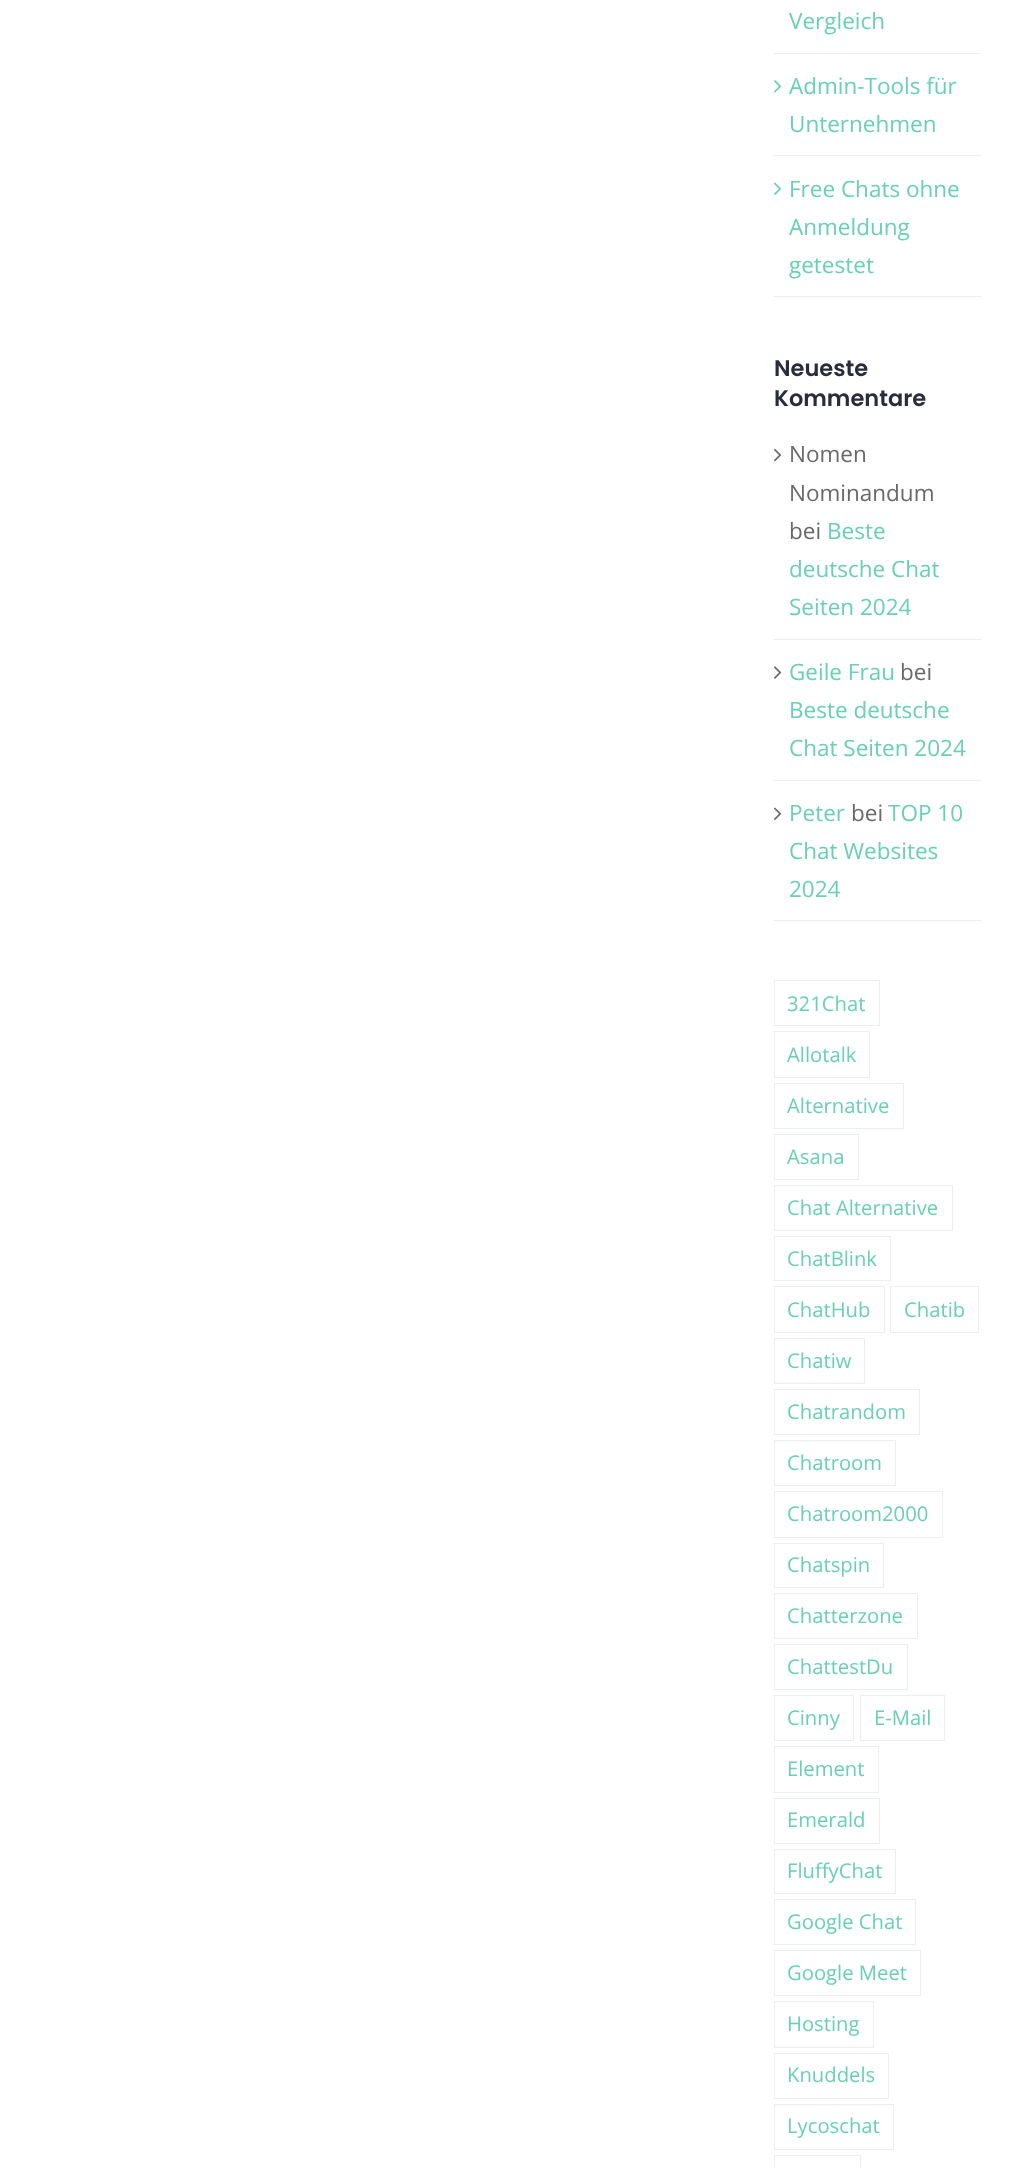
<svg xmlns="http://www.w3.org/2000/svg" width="1018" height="2168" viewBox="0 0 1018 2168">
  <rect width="100%" height="100%" fill="rgb(255,255,255)"/>
  <rect x="774" y="53" width="207" height="1" fill="rgb(236,239,239)"/>
  <text x="789" y="29" font-family="Open Sans" font-size="22.5" fill="rgb(105,208,179)">Vergleich</text>
  <rect x="774" y="155" width="207" height="1" fill="rgb(236,239,239)"/>
  <image x="774" y="80" width="8" height="13" href="pic1.png"/>
  <g font-family="Open Sans" font-size="22.5" fill="rgb(105,208,179)">
    <text>
      <tspan x="789" y="94">Admin-Tools für</tspan>
      <tspan x="789" y="132">Unternehmen</tspan>
    </text>
  </g>
  <rect x="774" y="296" width="207" height="1" fill="rgb(236,239,239)"/>
  <image x="774" y="182" width="8" height="13" href="pic2.png"/>
  <g font-family="Open Sans" font-size="22.5" fill="rgb(105,208,179)">
    <text>
      <tspan x="789" y="197">Free Chats ohne</tspan>
      <tspan x="789" y="235">Anmeldung</tspan>
      <tspan x="789" y="273">getestet</tspan>
    </text>
  </g>
  <g font-family="Poppins" font-size="22.5" font-weight="600" fill="rgb(39,45,58)">
    <text>
      <tspan x="774" y="376">Neueste</tspan>
      <tspan x="774" y="406">Kommentare</tspan>
    </text>
  </g>
  <rect x="774" y="639" width="207" height="1" fill="rgb(236,239,239)"/>
  <image x="774" y="448" width="8" height="14" href="pic3.png"/>
  <g font-family="Open Sans" font-size="22.5" fill="rgb(105,105,105)">
    <text>
      <tspan x="789" y="462">Nomen</tspan>
      <tspan x="789" y="501">Nominandum</tspan>
      <tspan x="789" y="539">bei</tspan>
    </text>
  </g>
  <g font-family="Open Sans" font-size="22.5" fill="rgb(105,208,179)">
    <text x="827" y="539">Beste</text>
    <text>
      <tspan x="789" y="577">deutsche Chat</tspan>
      <tspan x="789" y="615">Seiten 2024</tspan>
    </text>
  </g>
  <rect x="774" y="780" width="207" height="1" fill="rgb(236,239,239)"/>
  <image x="774" y="666" width="8" height="13" href="pic4.png"/>
  <text x="789" y="680" font-family="Open Sans" font-size="22.5" fill="rgb(105,208,179)">Geile Frau</text>
  <text x="900" y="680" font-family="Open Sans" font-size="22.5" fill="rgb(105,105,105)">bei</text>
  <g font-family="Open Sans" font-size="22.5" fill="rgb(105,208,179)">
    <text>
      <tspan x="789" y="718">Beste deutsche</tspan>
      <tspan x="789" y="756">Chat Seiten 2024</tspan>
    </text>
  </g>
  <rect x="774" y="920" width="207" height="1" fill="rgb(236,239,239)"/>
  <image x="774" y="807" width="8" height="13" href="pic5.png"/>
  <text x="789" y="821" font-family="Open Sans" font-size="22.5" fill="rgb(105,208,179)">Peter</text>
  <text x="851" y="821" font-family="Open Sans" font-size="22.5" fill="rgb(105,105,105)">bei</text>
  <g font-family="Open Sans" font-size="22.5" fill="rgb(105,208,179)">
    <text x="888" y="821">TOP 10</text>
    <text>
      <tspan x="789" y="859">Chat Websites</tspan>
      <tspan x="789" y="897">2024</tspan>
    </text>
  </g>
  <rect x="774.5" y="980.5" width="105" height="45" fill="none" stroke="rgb(236,239,239)"/>
  <text x="787" y="1011" font-family="Open Sans" font-size="20.25" fill="rgb(105,208,179)">321Chat</text>
  <rect x="774.5" y="1031.5" width="95" height="46" fill="none" stroke="rgb(236,239,239)"/>
  <text x="787" y="1062" font-family="Open Sans" font-size="20.25" fill="rgb(105,208,179)">Allotalk</text>
  <rect x="774.5" y="1083.5" width="129" height="45" fill="none" stroke="rgb(236,239,239)"/>
  <text x="787" y="1113" font-family="Open Sans" font-size="20.25" fill="rgb(105,208,179)">Alternative</text>
  <rect x="774.5" y="1134.5" width="84" height="45" fill="none" stroke="rgb(236,239,239)"/>
  <text x="787" y="1164" font-family="Open Sans" font-size="20.25" fill="rgb(105,208,179)">Asana</text>
  <rect x="774.5" y="1185.5" width="178" height="45" fill="none" stroke="rgb(236,239,239)"/>
  <text x="787" y="1215" font-family="Open Sans" font-size="20.25" fill="rgb(105,208,179)">Chat Alternative</text>
  <rect x="774.5" y="1236.5" width="116" height="44" fill="none" stroke="rgb(236,239,239)"/>
  <text x="787" y="1266" font-family="Open Sans" font-size="20.25" fill="rgb(105,208,179)">ChatBlink</text>
  <rect x="774.5" y="1286.5" width="110" height="46" fill="none" stroke="rgb(236,239,239)"/>
  <text x="787" y="1317" font-family="Open Sans" font-size="20.25" fill="rgb(105,208,179)">ChatHub</text>
  <rect x="890.5" y="1286.5" width="88" height="46" fill="none" stroke="rgb(236,239,239)"/>
  <text x="904" y="1317" font-family="Open Sans" font-size="20.25" fill="rgb(105,208,179)">Chatib</text>
  <rect x="774.5" y="1338.5" width="90" height="45" fill="none" stroke="rgb(236,239,239)"/>
  <text x="787" y="1368" font-family="Open Sans" font-size="20.25" fill="rgb(105,208,179)">Chatiw</text>
  <rect x="774.5" y="1389.5" width="145" height="45" fill="none" stroke="rgb(236,239,239)"/>
  <text x="787" y="1419" font-family="Open Sans" font-size="20.25" fill="rgb(105,208,179)">Chatrandom</text>
  <rect x="774.5" y="1440.5" width="121" height="45" fill="none" stroke="rgb(236,239,239)"/>
  <text x="787" y="1470" font-family="Open Sans" font-size="20.25" fill="rgb(105,208,179)">Chatroom</text>
  <rect x="774.5" y="1491.5" width="168" height="46" fill="none" stroke="rgb(236,239,239)"/>
  <text x="787" y="1521" font-family="Open Sans" font-size="20.25" fill="rgb(105,208,179)">Chatroom2000</text>
  <rect x="774.5" y="1543.5" width="109" height="44" fill="none" stroke="rgb(236,239,239)"/>
  <text x="787" y="1572" font-family="Open Sans" font-size="20.25" fill="rgb(105,208,179)">Chatspin</text>
  <rect x="774.5" y="1593.5" width="143" height="45" fill="none" stroke="rgb(236,239,239)"/>
  <text x="787" y="1623" font-family="Open Sans" font-size="20.25" fill="rgb(105,208,179)">Chatterzone</text>
  <rect x="774.5" y="1644.5" width="133" height="45" fill="none" stroke="rgb(236,239,239)"/>
  <text x="787" y="1674" font-family="Open Sans" font-size="20.25" fill="rgb(105,208,179)">ChattestDu</text>
  <rect x="774.5" y="1695.5" width="79" height="45" fill="none" stroke="rgb(236,239,239)"/>
  <text x="787" y="1725" font-family="Open Sans" font-size="20.25" fill="rgb(105,208,179)">Cinny</text>
  <rect x="860.5" y="1695.5" width="84" height="45" fill="none" stroke="rgb(236,239,239)"/>
  <text x="874" y="1725" font-family="Open Sans" font-size="20.25" fill="rgb(105,208,179)">E-Mail</text>
  <rect x="774.5" y="1746.5" width="104" height="46" fill="none" stroke="rgb(236,239,239)"/>
  <text x="787" y="1776" font-family="Open Sans" font-size="20.25" fill="rgb(105,208,179)">Element</text>
  <rect x="774.5" y="1798.5" width="105" height="45" fill="none" stroke="rgb(236,239,239)"/>
  <text x="787" y="1827" font-family="Open Sans" font-size="20.25" fill="rgb(105,208,179)">Emerald</text>
  <rect x="774.5" y="1849.5" width="121" height="44" fill="none" stroke="rgb(236,239,239)"/>
  <text x="787" y="1878" font-family="Open Sans" font-size="20.25" fill="rgb(105,208,179)">FluffyChat</text>
  <rect x="774.5" y="1899.5" width="141" height="45" fill="none" stroke="rgb(236,239,239)"/>
  <text x="787" y="1929" font-family="Open Sans" font-size="20.25" fill="rgb(105,208,179)">Google Chat</text>
  <rect x="774.5" y="1950.5" width="146" height="45" fill="none" stroke="rgb(236,239,239)"/>
  <text x="787" y="1980" font-family="Open Sans" font-size="20.25" fill="rgb(105,208,179)">Google Meet</text>
  <rect x="774.5" y="2001.5" width="99" height="46" fill="none" stroke="rgb(236,239,239)"/>
  <text x="787" y="2031" font-family="Open Sans" font-size="20.25" fill="rgb(105,208,179)">Hosting</text>
  <rect x="774.5" y="2053.5" width="114" height="45" fill="none" stroke="rgb(236,239,239)"/>
  <text x="787" y="2082" font-family="Open Sans" font-size="20.25" fill="rgb(105,208,179)">Knuddels</text>
  <rect x="774.5" y="2104.5" width="119" height="45" fill="none" stroke="rgb(236,239,239)"/>
  <text x="787" y="2133" font-family="Open Sans" font-size="20.25" fill="rgb(105,208,179)">Lycoschat</text>
  <rect x="774.5" y="2155.5" width="86" height="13" fill="none" stroke="rgb(236,239,239)"/>
</svg>
